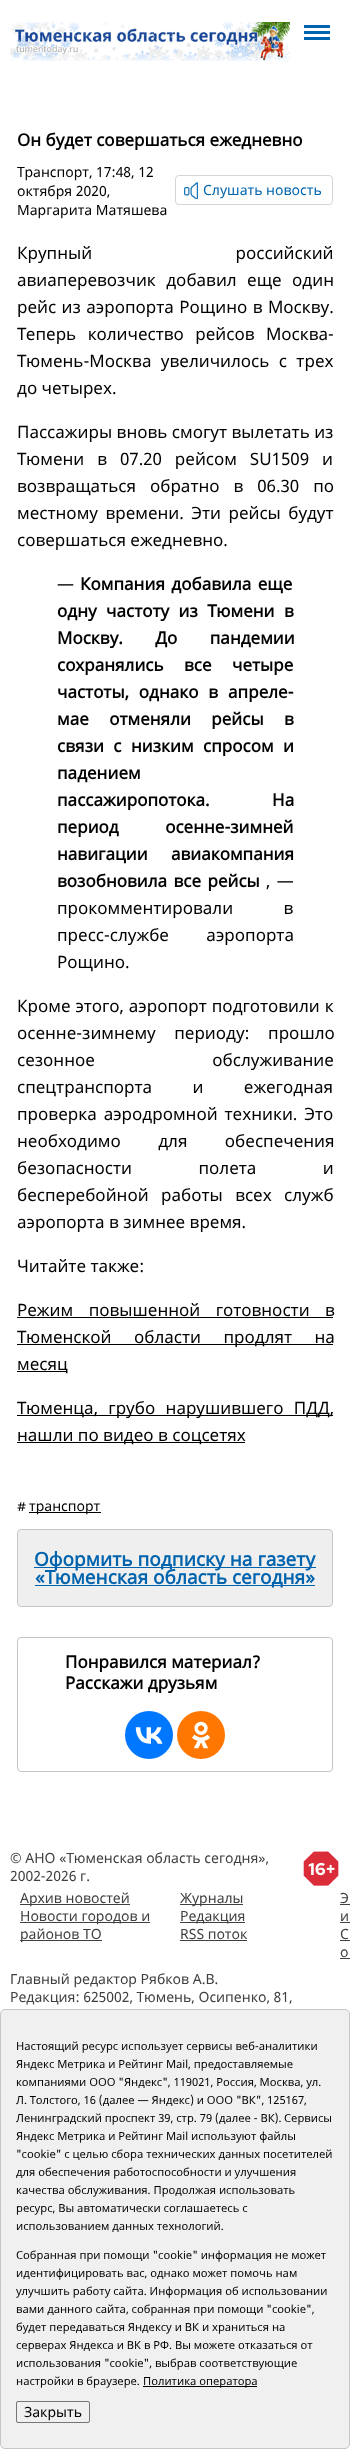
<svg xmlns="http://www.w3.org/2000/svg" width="350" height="2449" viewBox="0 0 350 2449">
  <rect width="100%" height="100%" fill="rgb(255,255,255)"/>
  <image x="10" y="22" width="280" height="39" href="pic1.png"/>
  <image x="304" y="25" width="26" height="15" href="pic2.png"/>
  <text x="17" y="146" font-family="Noto Sans" font-size="17" font-weight="bold" fill="rgb(0,0,0)">Он будет совершаться ежедневно</text>
  <g font-family="Noto Sans" font-size="14" fill="rgb(0,0,0)">
    <text>
      <tspan x="17" y="177">Транспорт, 17:48, 12</tspan>
      <tspan x="17" y="196">октября 2020,</tspan>
      <tspan x="17" y="215">Маргарита Матяшева</tspan>
    </text>
  </g>
  <rect x="175.5" y="175.5" width="157" height="29" rx="3.5" fill="none" stroke="rgb(213,213,213)"/>
  <image x="184" y="182" width="14" height="17" href="pic3.png"/>
  <text x="203" y="195" font-family="Noto Sans" font-size="14" fill="rgb(0,99,173)">Слушать новость</text>
  <g font-family="Noto Sans" font-size="17" fill="rgb(0,0,0)">
    <text>
      <tspan x="17" y="259" word-spacing="139">Крупный российский</tspan>
      <tspan x="17" y="286" word-spacing="6">авиаперевозчик добавил еще один</tspan>
      <tspan x="17" y="313" word-spacing="1">рейс из аэропорта Рощино в Москву.</tspan>
      <tspan x="17" y="340" word-spacing="7">Теперь количество рейсов Москва-</tspan>
      <tspan x="17" y="367" word-spacing="5">Тюмень-Москва увеличилось с трех</tspan>
      <tspan x="17" y="394">до четырех.</tspan>
    </text>
    <text>
      <tspan x="17" y="438">Пассажиры вновь смогут вылетать из</tspan>
      <tspan x="17" y="465" word-spacing="8.5">Тюмени в 07.20 рейсом SU1509 и</tspan>
      <tspan x="17" y="492" word-spacing="9.5">возвращаться обратно в 06.30 по</tspan>
      <tspan x="17" y="519" word-spacing="3">местному времени. Эти рейсы будут</tspan>
      <tspan x="17" y="546">совершаться ежедневно.</tspan>
    </text>
    <text x="57" y="590">—</text>
  </g>
  <g font-family="Noto Sans" font-size="17" font-weight="bold" fill="rgb(0,0,0)">
    <text x="80" y="590" word-spacing="2">Компания добавила еще</text>
    <text>
      <tspan x="57" y="617" word-spacing="5">одну частоту из Тюмени в</tspan>
      <tspan x="57" y="644" word-spacing="28">Москву. До пандемии</tspan>
      <tspan x="57" y="671" word-spacing="16">сохранялись все четыре</tspan>
      <tspan x="57" y="698" word-spacing="5.5">частоты, однако в апреле-</tspan>
      <tspan x="57" y="725" word-spacing="16">мае отменяли рейсы в</tspan>
      <tspan x="57" y="752" word-spacing="5">связи с низким спросом и</tspan>
      <tspan x="57" y="779">падением</tspan>
      <tspan x="57" y="806" word-spacing="58">пассажиропотока. На</tspan>
      <tspan x="57" y="833" word-spacing="42">период осенне-зимней</tspan>
      <tspan x="57" y="860" word-spacing="19">навигации авиакомпания</tspan>
      <tspan x="57" y="887" word-spacing="2">возобновила все рейсы</tspan>
    </text>
  </g>
  <g font-family="Noto Sans" font-size="17" fill="rgb(0,0,0)">
    <text x="266" y="887" word-spacing="2">, —</text>
    <text>
      <tspan x="57" y="914" word-spacing="46">прокомментировали в</tspan>
      <tspan x="57" y="941" word-spacing="33">пресс-службе аэропорта</tspan>
      <tspan x="57" y="968">Рощино.</tspan>
    </text>
    <text>
      <tspan x="17" y="1012" word-spacing="0.5">Кроме этого, аэропорт подготовили к</tspan>
      <tspan x="17" y="1039" word-spacing="14">осенне-зимнему периоду: прошло</tspan>
      <tspan x="17" y="1066" word-spacing="113">сезонное обслуживание</tspan>
      <tspan x="17" y="1093" word-spacing="36">спецтранспорта и ежегодная</tspan>
      <tspan x="17" y="1120" word-spacing="2.5">проверка аэродромной техники. Это</tspan>
      <tspan x="17" y="1147" word-spacing="33">необходимо для обеспечения</tspan>
      <tspan x="17" y="1174" word-spacing="62">безопасности полета и</tspan>
      <tspan x="17" y="1201" word-spacing="8">бесперебойной работы всех служб</tspan>
      <tspan x="17" y="1228">аэропорта в зимнее время.</tspan>
    </text>
    <text x="17" y="1272">Читайте также:</text>
    <text x="17" y="1316" word-spacing="11">Режим повышенной готовности в</text>
  </g>
  <rect x="17" y="1317" width="316" height="1" fill="rgb(0,0,0)"/>
  <rect x="17" y="1344" width="316" height="1" fill="rgb(0,0,0)"/>
  <text x="17" y="1343" word-spacing="18" font-family="Noto Sans" font-size="17" fill="rgb(0,0,0)">Тюменской области продлят на</text>
  <rect x="17" y="1371" width="50" height="1" fill="rgb(0,0,0)"/>
  <text x="17" y="1370" font-family="Noto Sans" font-size="17" fill="rgb(0,0,0)">месяц</text>
  <rect x="17" y="1415" width="316" height="1" fill="rgb(0,0,0)"/>
  <text x="17" y="1414" word-spacing="6" font-family="Noto Sans" font-size="17" fill="rgb(0,0,0)">Тюменца, грубо нарушившего ПДД,</text>
  <rect x="17" y="1442" width="228" height="1" fill="rgb(0,0,0)"/>
  <text x="17" y="1441" font-family="Noto Sans" font-size="17" fill="rgb(0,0,0)">нашли по видео в соцсетях</text>
  <text x="17" y="1511" font-family="Noto Sans" font-size="14" fill="rgb(0,0,0)">#</text>
  <rect x="29" y="1512" width="72" height="1" fill="rgb(0,0,0)"/>
  <text x="29" y="1511" font-family="Noto Sans" font-size="14" fill="rgb(0,0,0)">транспорт</text>
  <rect x="17.5" y="1529.5" width="315" height="77" rx="3.5" fill="rgb(239,239,239)" stroke="rgb(198,198,198)"/>
  <rect x="34" y="1567" width="282" height="1" fill="rgb(0,99,173)"/>
  <text x="34" y="1566" font-family="Noto Sans" font-size="19" font-weight="bold" fill="rgb(0,99,173)">Оформить подписку на газету</text>
  <rect x="35" y="1585" width="280" height="1" fill="rgb(0,99,173)"/>
  <text x="35" y="1584" font-family="Noto Sans" font-size="19" font-weight="bold" fill="rgb(0,99,173)">«Тюменская область сегодня»</text>
  <rect x="17.5" y="1637.5" width="315" height="134" rx="3.5" fill="none" stroke="rgb(197,197,197)"/>
  <g font-family="Noto Sans" font-size="17" font-weight="bold" fill="rgb(0,0,0)">
    <text>
      <tspan x="65" y="1668">Понравился материал?</tspan>
      <tspan x="65" y="1689">Расскажи друзьям</tspan>
    </text>
  </g>
  <circle cx="149" cy="1735" r="24" fill="rgb(0,119,255)"/>
  <image x="135" y="1727" width="28" height="17" href="pic4.png"/>
  <circle cx="201" cy="1735" r="24" fill="rgb(255,119,0)"/>
  <image x="192" y="1721" width="18" height="28" href="pic5.png"/>
  <g font-family="Noto Sans" font-size="14" fill="rgb(64,64,64)">
    <text>
      <tspan x="10" y="1863">© АНО «Тюменская область сегодня»,</tspan>
      <tspan x="10" y="1881">2002-2026 г.</tspan>
    </text>
  </g>
  <image x="303" y="1851" width="36" height="35" href="pic6.png"/>
  <rect x="20" y="1904" width="110" height="1" fill="rgb(64,64,64)"/>
  <text x="20" y="1903" font-family="Noto Sans" font-size="14" fill="rgb(64,64,64)">Архив новостей</text>
  <rect x="20" y="1922" width="130" height="1" fill="rgb(64,64,64)"/>
  <text x="20" y="1921" font-family="Noto Sans" font-size="14" fill="rgb(64,64,64)">Новости городов и</text>
  <rect x="20" y="1940" width="82" height="1" fill="rgb(64,64,64)"/>
  <text x="20" y="1939" font-family="Noto Sans" font-size="14" fill="rgb(64,64,64)">районов ТО</text>
  <rect x="180" y="1904" width="63" height="1" fill="rgb(64,64,64)"/>
  <text x="180" y="1903" font-family="Noto Sans" font-size="14" fill="rgb(64,64,64)">Журналы</text>
  <rect x="180" y="1922" width="65" height="1" fill="rgb(64,64,64)"/>
  <g font-family="Noto Sans" font-size="14" fill="rgb(64,64,64)">
    <text>
      <tspan x="180" y="1921">Редакция</tspan>
      <tspan x="180" y="1939">RSS поток</tspan>
    </text>
  </g>
  <rect x="180" y="1940" width="67" height="1" fill="rgb(64,64,64)"/>
  <text x="340" y="1903" font-family="Noto Sans" font-size="14" fill="rgb(64,64,64)">Э</text>
  <rect x="340" y="1904" width="10" height="1" fill="rgb(64,64,64)"/>
  <text x="340" y="1921" font-family="Noto Sans" font-size="14" fill="rgb(64,64,64)">и</text>
  <rect x="340" y="1922" width="10" height="1" fill="rgb(64,64,64)"/>
  <text x="340" y="1939" font-family="Noto Sans" font-size="14" fill="rgb(64,64,64)">С</text>
  <rect x="340" y="1940" width="10" height="1" fill="rgb(64,64,64)"/>
  <text x="340" y="1957" font-family="Noto Sans" font-size="14" fill="rgb(64,64,64)">о</text>
  <rect x="340" y="1958" width="10" height="1" fill="rgb(64,64,64)"/>
  <g font-family="Noto Sans" font-size="14" fill="rgb(64,64,64)">
    <text>
      <tspan x="10" y="1984">Главный редактор Рябков А.В.</tspan>
      <tspan x="10" y="2002">Редакция: 625002, Тюмень, Осипенко, 81,</tspan>
    </text>
  </g>
  <rect x="78" y="2345" width="144" height="1" fill="rgb(64,64,64)"/>
  <rect x="0.5" y="2009.5" width="349" height="439" rx="4.5" fill="rgba(239,239,239,0.95)" stroke="rgb(198,198,198)"/>
  <g font-family="Noto Sans" font-size="11.2" fill="rgb(0,0,0)">
    <text>
      <tspan x="16" y="2050">Настоящий ресурс использует сервисы веб-аналитики</tspan>
      <tspan x="16" y="2068">Яндекс Метрика и Рейтинг Mail, предоставляемые</tspan>
      <tspan x="16" y="2086">компаниями ООО "Яндекс", 119021, Россия, Москва, ул.</tspan>
      <tspan x="16" y="2104">Л. Толстого, 16 (далее — Яндекс) и ООО "ВК", 125167,</tspan>
      <tspan x="16" y="2122">Ленинградский проспект 39, стр. 79 (далее - ВК).</tspan>
    </text>
    <text x="284" y="2122">Сервисы</text>
    <text>
      <tspan x="16" y="2140">Яндекс Метрика и Рейтинг Mail используют файлы</tspan>
      <tspan x="16" y="2158">"cookie" с целью сбора технических данных посетителей</tspan>
      <tspan x="16" y="2176">для обеспечения работоспособности и улучшения</tspan>
      <tspan x="16" y="2194">качества обслуживания. Продолжая использовать</tspan>
      <tspan x="16" y="2212">ресурс, Вы автоматически соглашаетесь с</tspan>
      <tspan x="16" y="2230">использованием данных технологий.</tspan>
    </text>
    <text>
      <tspan x="16" y="2259">Собранная при помощи "cookie" информация не может</tspan>
      <tspan x="16" y="2277">идентифицировать вас, однако может помочь нам</tspan>
      <tspan x="16" y="2295">улучшить работу сайта. Информация об использовании</tspan>
      <tspan x="16" y="2313">вами данного сайта, собранная при помощи "cookie",</tspan>
      <tspan x="16" y="2331">будет передаваться Яндексу и ВК и храниться на</tspan>
      <tspan x="16" y="2349">серверах Яндекса и ВК в РФ. Вы можете отказаться от</tspan>
      <tspan x="16" y="2367">использования "cookie", выбрав соответствующие</tspan>
      <tspan x="16" y="2385">настройки в браузере.</tspan>
    </text>
  </g>
  <rect x="143" y="2386" width="114" height="1" fill="rgb(0,0,0)"/>
  <text x="143" y="2385" font-family="Noto Sans" font-size="11.2" fill="rgb(0,0,0)">Политика оператора</text>
  <rect x="16.5" y="2401.5" width="73" height="21" rx="1.5" fill="none" stroke="rgb(118,118,118)"/>
  <text x="24" y="2417" font-family="Noto Sans" font-size="14" fill="rgb(0,0,0)">Закрыть</text>
</svg>
